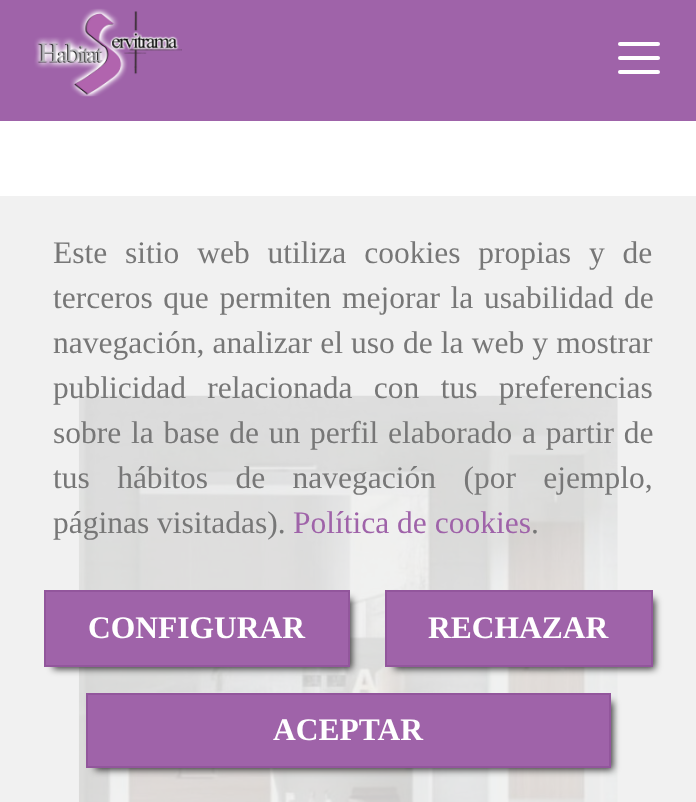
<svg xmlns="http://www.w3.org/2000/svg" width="696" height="802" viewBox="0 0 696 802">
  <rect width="100%" height="100%" fill="rgb(255,255,255)"/>
  <rect x="0" y="0" width="696" height="121" fill="rgb(159,99,169)"/>
  <image x="34" y="8" width="148" height="89" href="pic1.png"/>
  <rect x="618" y="56" width="42" height="4" rx="2" fill="rgb(255,255,255)"/>
  <rect x="618" y="42" width="42" height="4" rx="2" fill="rgb(255,255,255)"/>
  <rect x="618" y="70" width="42" height="4" rx="2" fill="rgb(255,255,255)"/>
  <image x="78" y="395" width="540" height="407" href="pic2.png"/>
  <rect x="0" y="196" width="696" height="606" fill="rgba(238,238,238,0.85)"/>
  <g font-family="Liberation Serif" font-size="31.5" fill="rgb(119,119,119)">
    <text>
      <tspan x="53" y="263" word-spacing="10">Este sitio web utiliza cookies propias y de</tspan>
      <tspan x="53" y="308" word-spacing="2.75">terceros que permiten mejorar la usabilidad de</tspan>
      <tspan x="53" y="353" word-spacing="0.25">navegación, analizar el uso de la web y mostrar</tspan>
      <tspan x="53" y="398" word-spacing="13.5">publicidad relacionada con tus preferencias</tspan>
      <tspan x="53" y="443" word-spacing="1.9">sobre la base de un perfil elaborado a partir de</tspan>
      <tspan x="53" y="488" word-spacing="19.5">tus hábitos de navegación (por ejemplo,</tspan>
      <tspan x="53" y="533">páginas visitadas).</tspan>
    </text>
  </g>
  <text x="293" y="533" font-family="Liberation Serif" font-size="31.5" fill="rgb(159,99,169)">Política de cookies</text>
  <text x="531" y="533" font-family="Liberation Serif" font-size="31.5" fill="rgb(119,119,119)">.</text>
  <rect x="53" y="599" width="299" height="70" fill="rgba(0,0,0,0.75)" filter="blur(3.5px)"/>
  <rect x="45" y="591" width="304" height="75" fill="rgb(159,99,169)" stroke="rgb(146,86,156)" stroke-width="2"/>
  <text x="88" y="638" font-family="Liberation Serif" font-size="31.5" font-weight="bold" fill="rgb(255,255,255)">CONFIGURAR</text>
  <rect x="394" y="599" width="261" height="70" fill="rgba(0,0,0,0.75)" filter="blur(3.5px)"/>
  <rect x="386" y="591" width="266" height="75" fill="rgb(159,99,169)" stroke="rgb(146,86,156)" stroke-width="2"/>
  <text x="428" y="638" font-family="Liberation Serif" font-size="31.5" font-weight="bold" fill="rgb(255,255,255)">RECHAZAR</text>
  <rect x="95" y="702" width="518" height="68" fill="rgba(0,0,0,0.75)" filter="blur(3.5px)"/>
  <rect x="87" y="694" width="523" height="73" fill="rgb(159,99,169)" stroke="rgb(146,86,156)" stroke-width="2"/>
  <text x="273" y="740" font-family="Liberation Serif" font-size="31.5" font-weight="bold" fill="rgb(255,255,255)">ACEPTAR</text>
</svg>
